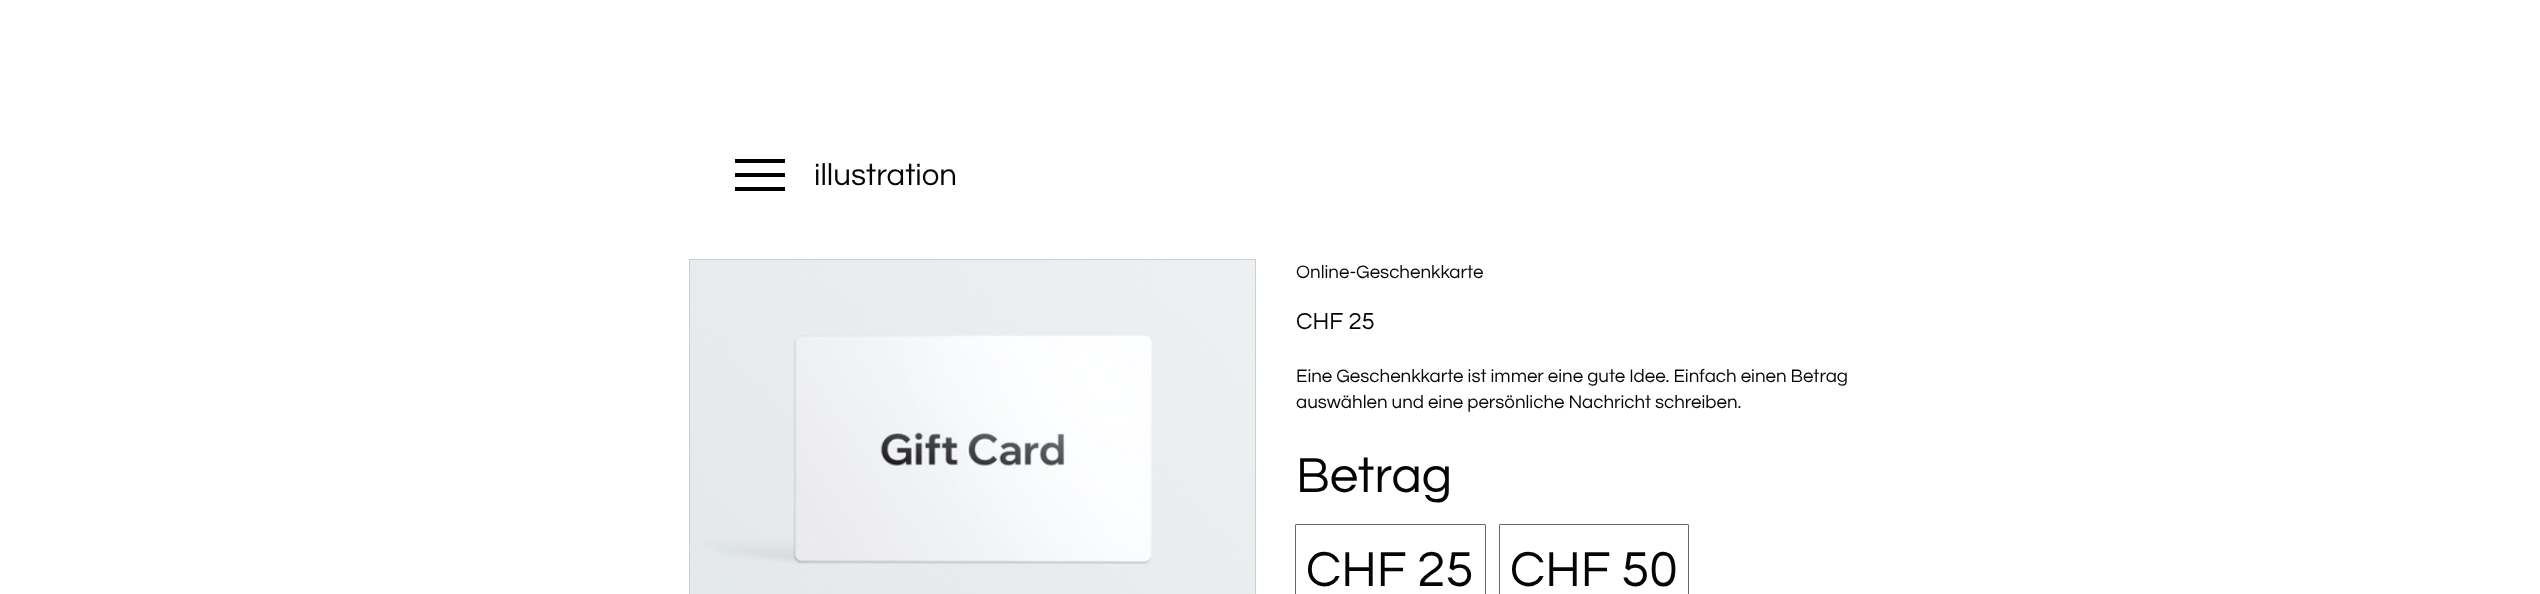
<svg xmlns="http://www.w3.org/2000/svg" width="2540" height="594" viewBox="0 0 2540 594">
  <rect width="100%" height="100%" fill="rgb(255,255,255)"/>
  <rect x="735" y="187" width="50" height="4" fill="rgb(0,0,0)"/>
  <rect x="735" y="159" width="50" height="4" fill="rgb(0,0,0)"/>
  <rect x="735" y="173" width="50" height="4" fill="rgb(0,0,0)"/>
  <text x="814" y="185" font-family="Questrial" font-size="31.25" fill="rgb(5,5,5)">illustration</text>
  <rect x="689.5" y="259.5" width="566" height="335" fill="none" stroke="rgb(207,207,207)"/>
  <image x="690" y="260" width="565" height="334" href="pic1.png"/>
  <text x="1296" y="278" font-family="Questrial" font-size="18.75" fill="rgb(5,5,5)">Online-Geschenkkarte</text>
  <text x="1296" y="329" font-family="Questrial" font-size="24" fill="rgb(5,5,5)">CHF 25</text>
  <g font-family="Questrial" font-size="18.75" fill="rgb(5,5,5)">
    <text>
      <tspan x="1296" y="382">Eine Geschenkkarte ist immer eine gute Idee. Einfach einen Betrag</tspan>
      <tspan x="1296" y="408">auswählen und eine persönliche Nachricht schreiben.</tspan>
    </text>
  </g>
  <text x="1296" y="492" font-family="Questrial" font-size="51" fill="rgb(5,5,5)">Betrag</text>
  <rect x="1295.5" y="524.5" width="190" height="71" rx="0.5" fill="none" stroke="rgb(105,105,105)"/>
  <text x="1306" y="586" font-family="Questrial" font-size="51" fill="rgb(5,5,5)">CHF 25</text>
  <rect x="1499.5" y="524.5" width="189" height="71" rx="0.5" fill="none" stroke="rgb(105,105,105)"/>
  <text x="1510" y="586" font-family="Questrial" font-size="51" fill="rgb(5,5,5)">CHF 50</text>
</svg>
